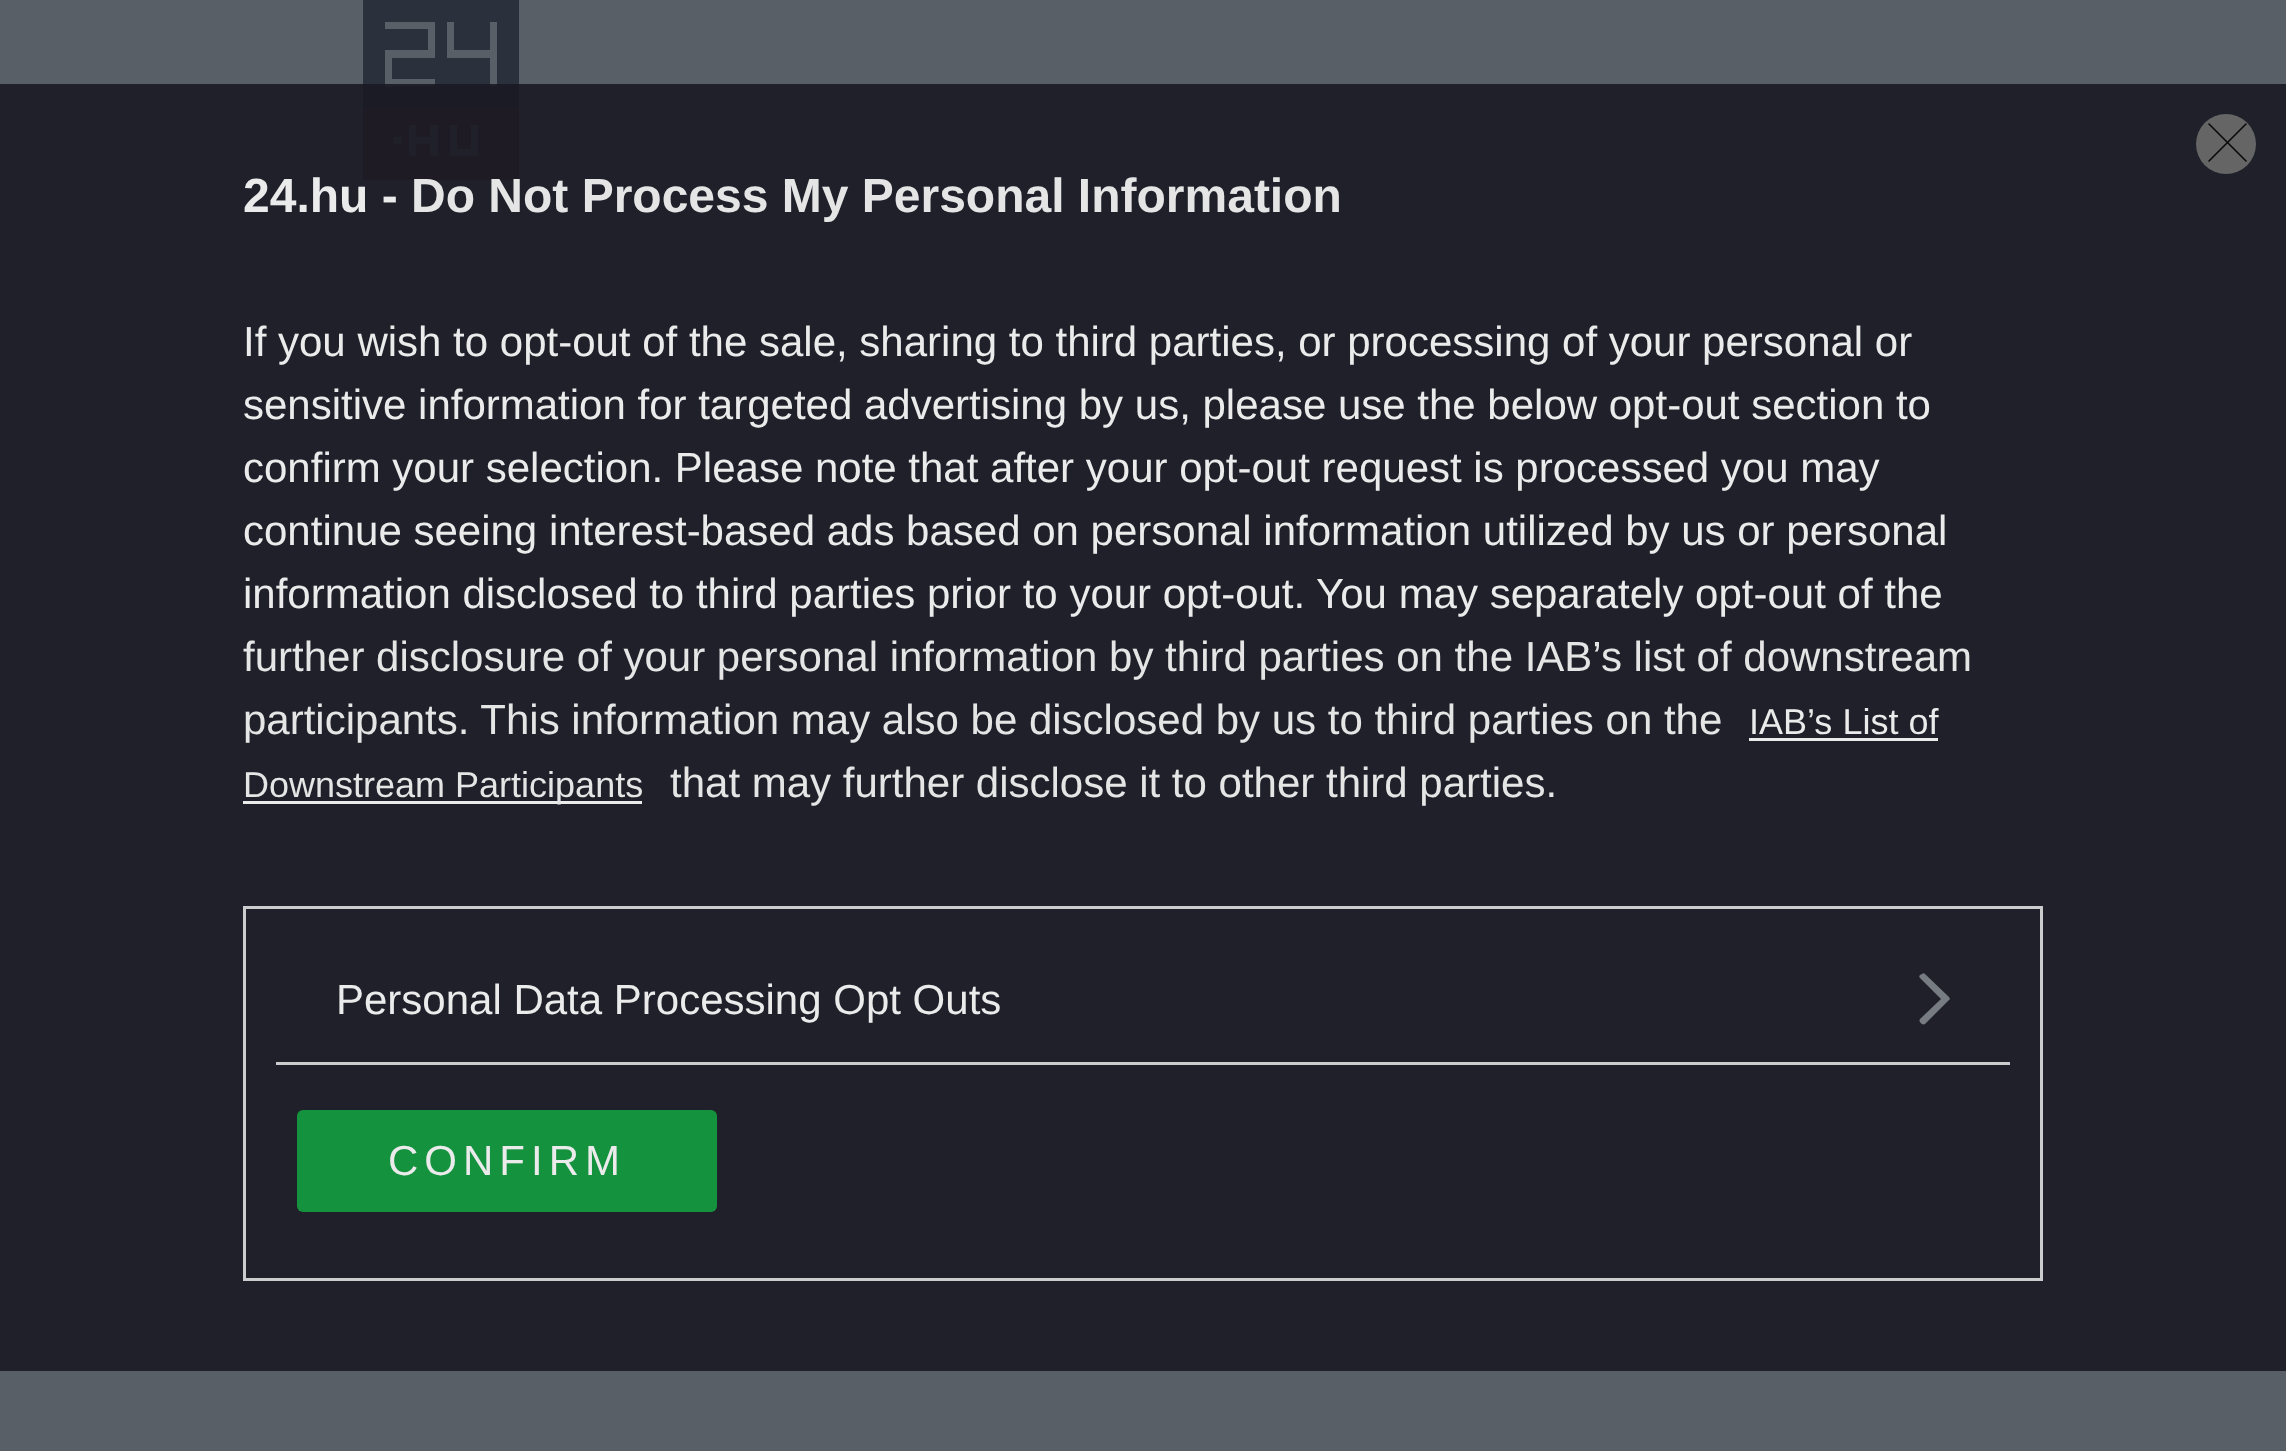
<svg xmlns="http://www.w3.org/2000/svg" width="2286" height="1451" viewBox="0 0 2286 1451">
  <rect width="100%" height="100%" fill="rgb(89,95,103)"/>
  <rect x="0" y="84" width="2286" height="1287" fill="rgb(31,32,41)"/>
  <rect x="363" y="108" width="156" height="72" fill="rgb(31,27,36)"/>
  <rect x="363" y="0" width="156" height="84" fill="rgb(42,48,60)"/>
  <rect x="363" y="84" width="156" height="24" fill="rgb(27,27,37)"/>
  <rect x="490" y="22" width="7" height="64" fill="rgb(89,95,103)"/>
  <rect x="490" y="84" width="7" height="2" fill="rgb(31,32,41)"/>
  <rect x="385" y="22" width="50" height="7" fill="rgb(89,95,103)"/>
  <rect x="428" y="22" width="7" height="36" fill="rgb(89,95,103)"/>
  <rect x="385" y="50" width="50" height="8" fill="rgb(89,95,103)"/>
  <rect x="447" y="50" width="50" height="8" fill="rgb(89,95,103)"/>
  <rect x="385" y="51" width="7" height="36" fill="rgb(89,95,103)"/>
  <rect x="385" y="86" width="7" height="1" fill="rgb(31,32,41)"/>
  <rect x="385" y="79" width="50" height="5" fill="rgb(89,95,103)"/>
  <rect x="385" y="84" width="50" height="2" fill="rgb(31,32,41)"/>
  <rect x="447" y="22" width="7" height="36" fill="rgb(89,95,103)"/>
  <rect x="450" y="125" width="7" height="31" fill="rgb(31,32,41)"/>
  <rect x="450" y="149" width="28" height="7" fill="rgb(31,32,41)"/>
  <rect x="471" y="125" width="7" height="31" fill="rgb(31,32,41)"/>
  <rect x="394" y="137" width="8" height="7" fill="rgb(31,32,41)"/>
  <rect x="409" y="125" width="7" height="31" fill="rgb(31,32,41)"/>
  <rect x="414" y="137" width="18" height="7" fill="rgb(31,32,41)"/>
  <rect x="430" y="125" width="8" height="31" fill="rgb(31,32,41)"/>
  <circle cx="2226" cy="144" r="30" fill="rgb(101,101,102)"/>
  <path d="M2209 124L2246 161M2246 124L2209 161" fill="none" stroke="rgb(9,9,10)" stroke-width="1.6" stroke-linecap="round" stroke-linejoin="round"/>
  <text x="243" y="212" font-family="Liberation Sans" font-size="48" font-weight="bold" fill="rgb(235,235,236)">24.hu -</text>
  <text x="411" y="212" font-family="Liberation Sans" font-size="48" font-weight="bold" fill="rgb(229,229,230)">Do Not Process My Personal Information</text>
  <g font-family="Liberation Sans" font-size="42" fill="rgb(235,235,236)">
    <text>
      <tspan x="243" y="356">If you wish to opt-out of the sale, sharing to third parties, or processing of your personal or</tspan>
      <tspan x="243" y="419">sensitive information for targeted advertising by us, please use the below opt-out section to</tspan>
      <tspan x="243" y="482">confirm your selection. Please note that after your opt-out request is processed you may</tspan>
      <tspan x="243" y="545">continue seeing interest-based ads based on personal information utilized by us or personal</tspan>
      <tspan x="243" y="608">information disclosed to third parties prior to your opt-out. You may separately opt-out of the</tspan>
    </text>
  </g>
  <g font-family="Liberation Sans" font-size="42" fill="rgb(229,229,230)">
    <text>
      <tspan x="243" y="671">further disclosure of your personal information by third parties on the IAB’s list of downstream</tspan>
      <tspan x="243" y="734">participants. This information may also be disclosed by us to third parties on the</tspan>
    </text>
  </g>
  <text x="1749" y="734" font-family="Liberation Sans" font-size="36" fill="rgb(235,235,236)">IAB’s List of</text>
  <rect x="1749" y="738" width="189" height="3" fill="rgb(235,235,236)"/>
  <rect x="243" y="801" width="399" height="3" fill="rgb(235,235,236)"/>
  <text x="243" y="797" font-family="Liberation Sans" font-size="36" fill="rgb(229,229,230)">Downstream Participants</text>
  <text x="670" y="797" font-family="Liberation Sans" font-size="42" fill="rgb(229,229,230)">that may further disclose it to other third parties.</text>
  <rect x="244.5" y="907.5" width="1797" height="372" fill="none" stroke="rgb(203,204,205)" stroke-width="3"/>
  <rect x="276" y="1062" width="1734" height="3" fill="rgb(203,204,205)"/>
  <text x="336" y="1014" font-family="Liberation Sans" font-size="42" fill="rgb(235,235,236)">Personal Data Processing Opt Outs</text>
  <path d="M1949 1000L1925 1024C1922 1026 1918 1021 1920 1019L1941 999L1920 978C1919 977 1919 976 1920 975L1922 974C1923 973 1924 973 1925 974L1949 997C1950 998 1950 1000 1949 1000Z" fill="rgb(119,124,130)"/>
  <rect x="297" y="1110" width="420" height="102" rx="6" fill="rgb(21,146,62)"/>
  <text x="388" y="1175" font-family="Liberation Sans" font-size="42" letter-spacing="6" fill="rgb(235,235,236)">CONFIRM</text>
</svg>
